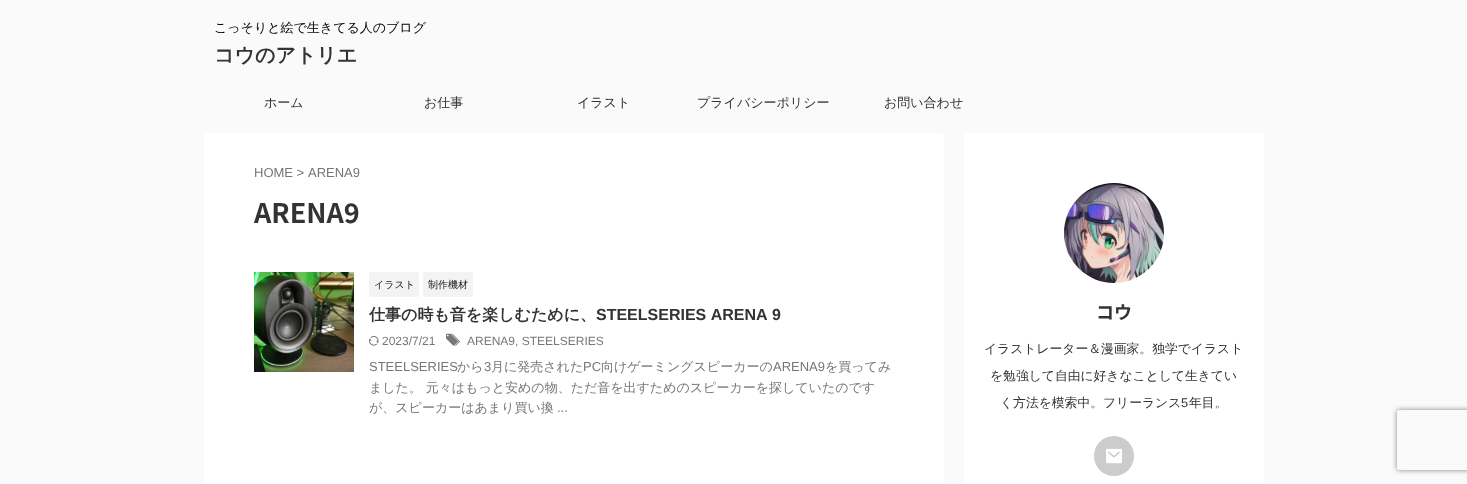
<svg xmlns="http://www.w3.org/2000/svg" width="1467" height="484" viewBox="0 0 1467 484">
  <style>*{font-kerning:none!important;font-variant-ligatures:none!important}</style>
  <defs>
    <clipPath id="clip1"><path d="M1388 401H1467V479H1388ZM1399 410H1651C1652 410 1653 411 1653 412V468C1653 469 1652 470 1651 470H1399C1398 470 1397 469 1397 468V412C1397 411 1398 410 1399 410Z" clip-rule="evenodd"/></clipPath>
  </defs>
  <rect width="100%" height="100%" fill="rgb(250,250,250)"/>
  <text x="214" y="32" font-family="WenQuanYi Zen Hei" font-size="13" font-weight="500" fill="rgb(0,0,0)">こっそりと絵で生きてる人のブログ</text>
  <text x="214" y="62" font-family="WenQuanYi Zen Hei" font-size="20" font-weight="bold" fill="rgb(51,51,51)">コウのアトリエ</text>
  <g font-family="WenQuanYi Zen Hei" font-size="13" font-weight="500" fill="rgb(51,51,51)">
    <text x="264" y="107">ホーム</text>
    <text x="424" y="107">お仕事</text>
    <text x="577" y="107">イラスト</text>
    <text x="697" y="107">プライバシーポリシー</text>
    <text x="884" y="107">お問い合わせ</text>
  </g>
  <rect x="204" y="133" width="740" height="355" rx="4" fill="rgb(255,255,255)"/>
  <g font-family="Liberation Sans" font-size="13" fill="rgb(119,119,119)">
    <text x="254" y="177">HOME &gt;</text>
    <text x="308" y="177">ARENA9</text>
  </g>
  <text x="254" y="223" font-family="Noto Sans JP" font-size="27" font-weight="bold" fill="rgb(51,51,51)">ARENA9</text>
  <image x="254" y="272" width="100" height="100" href="pic1.png"/>
  <rect x="369" y="272" width="50" height="25" rx="2" fill="rgb(243,243,243)"/>
  <text x="374" y="288" font-family="WenQuanYi Zen Hei" font-size="10" font-weight="500" fill="rgb(26,26,26)">イラスト</text>
  <rect x="423" y="272" width="50" height="25" rx="2" fill="rgb(243,243,243)"/>
  <text x="428" y="288" font-family="WenQuanYi Zen Hei" font-size="10" font-weight="500" fill="rgb(26,26,26)">制作機材</text>
  <text x="369" y="320" font-family="WenQuanYi Zen Hei" font-size="16" font-weight="bold" fill="rgb(51,51,51)">仕事の時も音を楽しむために、</text>
  <text x="596" y="320" font-family="Liberation Sans" font-size="16" font-weight="bold" fill="rgb(51,51,51)">STEELSERIES ARENA 9</text>
  <image x="369" y="336" width="10" height="10" href="pic2.png"/>
  <text x="382" y="345" font-family="Liberation Sans" font-size="12" fill="rgb(119,119,119)">2023/7/21</text>
  <image x="446" y="333" width="14" height="13" href="pic3.png"/>
  <text x="467" y="345" font-family="Liberation Sans" font-size="12" fill="rgb(119,119,119)">ARENA9, STEELSERIES</text>
  <text x="369" y="371" font-family="Liberation Sans" font-size="13" fill="rgb(119,119,119)">STEELSERIES</text>
  <text x="457" y="371" font-family="WenQuanYi Zen Hei" font-size="13" font-weight="500" fill="rgb(119,119,119)">から</text>
  <text x="484" y="371" font-family="Liberation Sans" font-size="13" fill="rgb(119,119,119)">3</text>
  <text x="491" y="371" font-family="WenQuanYi Zen Hei" font-size="13" font-weight="500" fill="rgb(119,119,119)">月に発売された</text>
  <text x="583" y="371" font-family="Liberation Sans" font-size="13" fill="rgb(119,119,119)">PC</text>
  <text x="601" y="371" font-family="WenQuanYi Zen Hei" font-size="13" font-weight="500" fill="rgb(119,119,119)">向けゲーミングスピーカーの</text>
  <text x="773" y="371" font-family="Liberation Sans" font-size="13" fill="rgb(119,119,119)">ARENA9</text>
  <g font-family="WenQuanYi Zen Hei" font-size="13" font-weight="500" fill="rgb(119,119,119)">
    <text x="825" y="371">を買ってみ</text>
    <text>
      <tspan x="369" y="392">ました。 元々はもっと安めの物、ただ音を出すためのスピーカーを探していたのです</tspan>
      <tspan x="369" y="412">が、スピーカーはあまり買い換</tspan>
    </text>
  </g>
  <text x="557" y="412" font-family="Liberation Sans" font-size="13" fill="rgb(119,119,119)">...</text>
  <rect x="964" y="133" width="300" height="351" fill="rgb(255,255,255)"/>
  <image x="1064" y="183" width="100" height="100" href="pic4.png"/>
  <text x="1096" y="319" font-family="Noto Sans JP" font-size="18" font-weight="bold" fill="rgb(51,51,51)">コウ</text>
  <g font-family="WenQuanYi Zen Hei" font-size="12.8" font-weight="500" fill="rgb(51,51,51)">
    <text x="984" y="353">イラストレーター＆漫画家。独学でイラスト</text>
    <text x="990" y="380">を勉強して自由に好きなことして生きてい</text>
    <text x="1000" y="407">く方法を模索中。フリーランス</text>
  </g>
  <text x="1181" y="407" font-family="Liberation Sans" font-size="12.8" fill="rgb(51,51,51)">5</text>
  <text x="1189" y="407" font-family="WenQuanYi Zen Hei" font-size="12.8" font-weight="500" fill="rgb(51,51,51)">年目。</text>
  <circle cx="1114" cy="456" r="20" fill="rgb(204,204,204)"/>
  <image x="1106" y="448" width="16" height="16" href="pic5.png"/>
  <g clip-path="url(#clip1)">
    <rect x="1397" y="410" width="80" height="60" rx="2" fill="rgb(128,128,128)" filter="blur(2.5px)"/>
  </g>
</svg>
